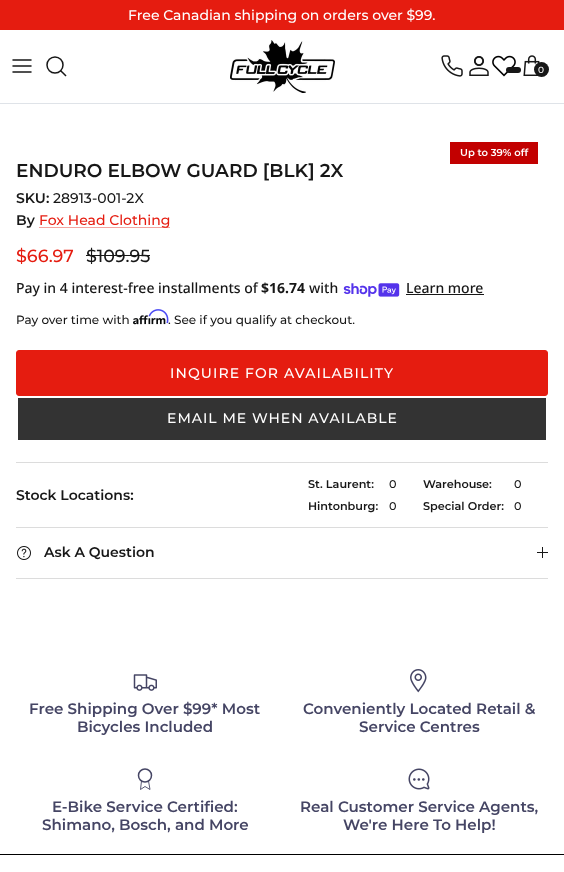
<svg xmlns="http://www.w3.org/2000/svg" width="564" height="872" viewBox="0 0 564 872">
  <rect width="100%" height="100%" fill="rgb(255,255,255)"/>
  <rect x="0" y="0" width="564" height="30" fill="rgb(229,28,16)"/>
  <text x="128" y="20" font-family="Montserrat" font-size="14" font-weight="500" fill="rgb(255,255,255)">Free Canadian shipping on orders over $99.</text>
  <rect x="0" y="103" width="564" height="1" fill="rgb(223,227,232)"/>
  <path d="M13 66H31M13 60H31M13 72H31" fill="none" stroke="rgb(23,23,23)" stroke-width="1.5" stroke-linecap="round" stroke-linejoin="round"/>
  <circle cx="55" cy="65" r="8" fill="none" stroke="rgb(23,23,23)" stroke-width="1.5"/>
  <path d="M61 71L65.5 75.5" fill="none" stroke="rgb(23,23,23)" stroke-width="1.5" stroke-linecap="square"/>
  <image x="230" y="40" width="105" height="53" href="pic1.png"/>
  <image x="441" y="55" width="22" height="22" href="pic2.png"/>
  <image x="469" y="56" width="20" height="20" href="pic3.png"/>
  <image x="492" y="55" width="24" height="22" href="pic4.png"/>
  <rect x="506" y="67" width="15" height="6" rx="3" fill="rgb(23,23,23)"/>
  <image x="523" y="55" width="17" height="21" href="pic5.png"/>
  <circle cx="541.5" cy="69.5" r="7.5" fill="rgb(23,23,23)"/>
  <text x="538" y="73" font-family="Montserrat" font-size="9" font-weight="500" fill="rgb(255,255,255)">0</text>
  <rect x="450" y="142" width="88" height="22" fill="rgb(194,0,0)"/>
  <text x="460" y="156" font-family="Montserrat" font-size="10" font-weight="600" fill="rgb(255,255,255)">Up to 39% off</text>
  <text x="16" y="177" font-family="Montserrat" font-size="18.5" font-weight="600" fill="rgb(23,23,23)">ENDURO ELBOW GUARD [BLK] 2X</text>
  <text x="16" y="203" font-family="Montserrat" font-size="14" font-weight="600" fill="rgb(23,23,23)">SKU:</text>
  <text x="53" y="203" font-family="Montserrat" font-size="14" font-weight="500" fill="rgb(23,23,23)">28913-001-2X</text>
  <text x="16" y="225" font-family="Montserrat" font-size="14" font-weight="600" fill="rgb(23,23,23)">By</text>
  <rect x="39" y="227" width="131" height="1" fill="rgb(245,164,159)"/>
  <text x="39" y="225" font-family="Montserrat" font-size="14" font-weight="500" fill="rgb(229,28,16)">Fox Head Clothing</text>
  <text x="16" y="262" font-family="Montserrat" font-size="17.5" font-weight="500" fill="rgb(229,28,16)">$66.97</text>
  <text x="86" y="262" font-family="Montserrat" font-size="17.5" font-weight="500" fill="rgb(23,23,23)">$109.95</text>
  <rect x="86" y="255" width="64" height="1" fill="rgb(23,23,23)"/>
  <text x="16" y="293" font-family="Noto Sans" font-size="14" font-weight="500" fill="rgb(23,23,23)">Pay in 4 interest-free installments of</text>
  <text x="261" y="293" font-family="Noto Sans" font-size="14" font-weight="bold" fill="rgb(23,23,23)">$16.74</text>
  <text x="309" y="293" font-family="Noto Sans" font-size="14" font-weight="500" fill="rgb(23,23,23)">with</text>
  <image x="343" y="283" width="57" height="14" href="pic6.png"/>
  <text x="406" y="293" font-family="Noto Sans" font-size="14" font-weight="500" fill="rgb(23,23,23)">Learn more</text>
  <rect x="406" y="294" width="78" height="1" fill="rgb(23,23,23)"/>
  <text x="16" y="324" font-family="Montserrat" font-size="12" font-weight="500" fill="rgb(23,23,23)">Pay over time with</text>
  <image x="133" y="315" width="33" height="10" href="pic8.png"/>
  <text x="168" y="324" font-family="Montserrat" font-size="12" font-weight="500" fill="rgb(23,23,23)">. See if you qualify at checkout.</text>
  <image x="148" y="309" width="21" height="15" href="pic7.png"/>
  <rect x="16.5" y="350.5" width="531" height="45" rx="2.5" fill="rgb(229,28,16)" stroke="rgb(229,28,16)"/>
  <text x="170" y="378" font-family="Montserrat" font-size="14" font-weight="500" letter-spacing="1.1" fill="rgb(255,255,255)">INQUIRE FOR AVAILABILITY</text>
  <rect x="18" y="398" width="528" height="42" fill="rgb(51,51,51)"/>
  <text x="167" y="423" font-family="Montserrat" font-size="14" font-weight="500" letter-spacing="1" fill="rgb(255,255,255)">EMAIL ME WHEN AVAILABLE</text>
  <rect x="16" y="462" width="532" height="1" fill="rgb(220,220,220)"/>
  <text x="16" y="500" font-family="Montserrat" font-size="14" font-weight="600" fill="rgb(23,23,23)">Stock Locations:</text>
  <g font-family="Montserrat" font-size="11.25" font-weight="600" fill="rgb(23,23,23)">
    <text>
      <tspan x="308" y="488">St. Laurent:</tspan>
      <tspan x="308" y="510">Hintonburg:</tspan>
    </text>
  </g>
  <g font-family="Montserrat" font-size="11.25" font-weight="500" fill="rgb(23,23,23)">
    <text>
      <tspan x="389" y="488">0</tspan>
      <tspan x="389" y="510">0</tspan>
    </text>
  </g>
  <g font-family="Montserrat" font-size="11.25" font-weight="600" fill="rgb(23,23,23)">
    <text>
      <tspan x="423" y="488">Warehouse:</tspan>
      <tspan x="423" y="510">Special Order:</tspan>
    </text>
  </g>
  <g font-family="Montserrat" font-size="11.25" font-weight="500" fill="rgb(23,23,23)">
    <text>
      <tspan x="514" y="488">0</tspan>
      <tspan x="514" y="510">0</tspan>
    </text>
  </g>
  <rect x="16" y="527" width="532" height="1" fill="rgb(220,220,220)"/>
  <rect x="16" y="578" width="532" height="1" fill="rgb(220,220,220)"/>
  <image x="17" y="546" width="14" height="14" href="pic9.png"/>
  <text x="44" y="557" font-family="Montserrat" font-size="14" font-weight="600" fill="rgb(23,23,23)">Ask A Question</text>
  <rect x="542" y="547" width="1" height="11" fill="rgb(23,23,23)"/>
  <rect x="537" y="552" width="11" height="1" fill="rgb(23,23,23)"/>
  <image x="133" y="674" width="24" height="17" href="pic10.png"/>
  <g font-family="Montserrat" font-size="15.1" font-weight="600" fill="rgb(69,69,100)">
    <text x="29" y="714">Free Shipping Over $99* Most</text>
    <text x="77" y="732">Bicycles Included</text>
  </g>
  <image x="410" y="669" width="17" height="24" href="pic11.png"/>
  <g font-family="Montserrat" font-size="15.1" font-weight="600" fill="rgb(69,69,100)">
    <text x="303" y="714">Conveniently Located Retail &amp;</text>
    <text x="359" y="732">Service Centres</text>
  </g>
  <circle cx="145" cy="775.5" r="6.5" fill="none" stroke="rgb(69,69,100)" stroke-width="1.5"/>
  <path d="M141.5 781L140.5 789.5L145 786.5L150 789.5L148.5 781" fill="none" stroke="rgb(69,69,100)" stroke-width="0.9"/>
  <g font-family="Montserrat" font-size="15.1" font-weight="600" fill="rgb(69,69,100)">
    <text x="52" y="812">E-Bike Service Certified:</text>
    <text x="42" y="830">Shimano, Bosch, and More</text>
  </g>
  <image x="408" y="768" width="22" height="22" href="pic12.png"/>
  <g font-family="Montserrat" font-size="15.1" font-weight="600" fill="rgb(69,69,100)">
    <text x="300" y="812">Real Customer Service Agents,</text>
    <text x="343" y="830">We're Here To Help!</text>
  </g>
  <rect x="0" y="854" width="564" height="1" fill="rgb(0,0,0)"/>
</svg>
